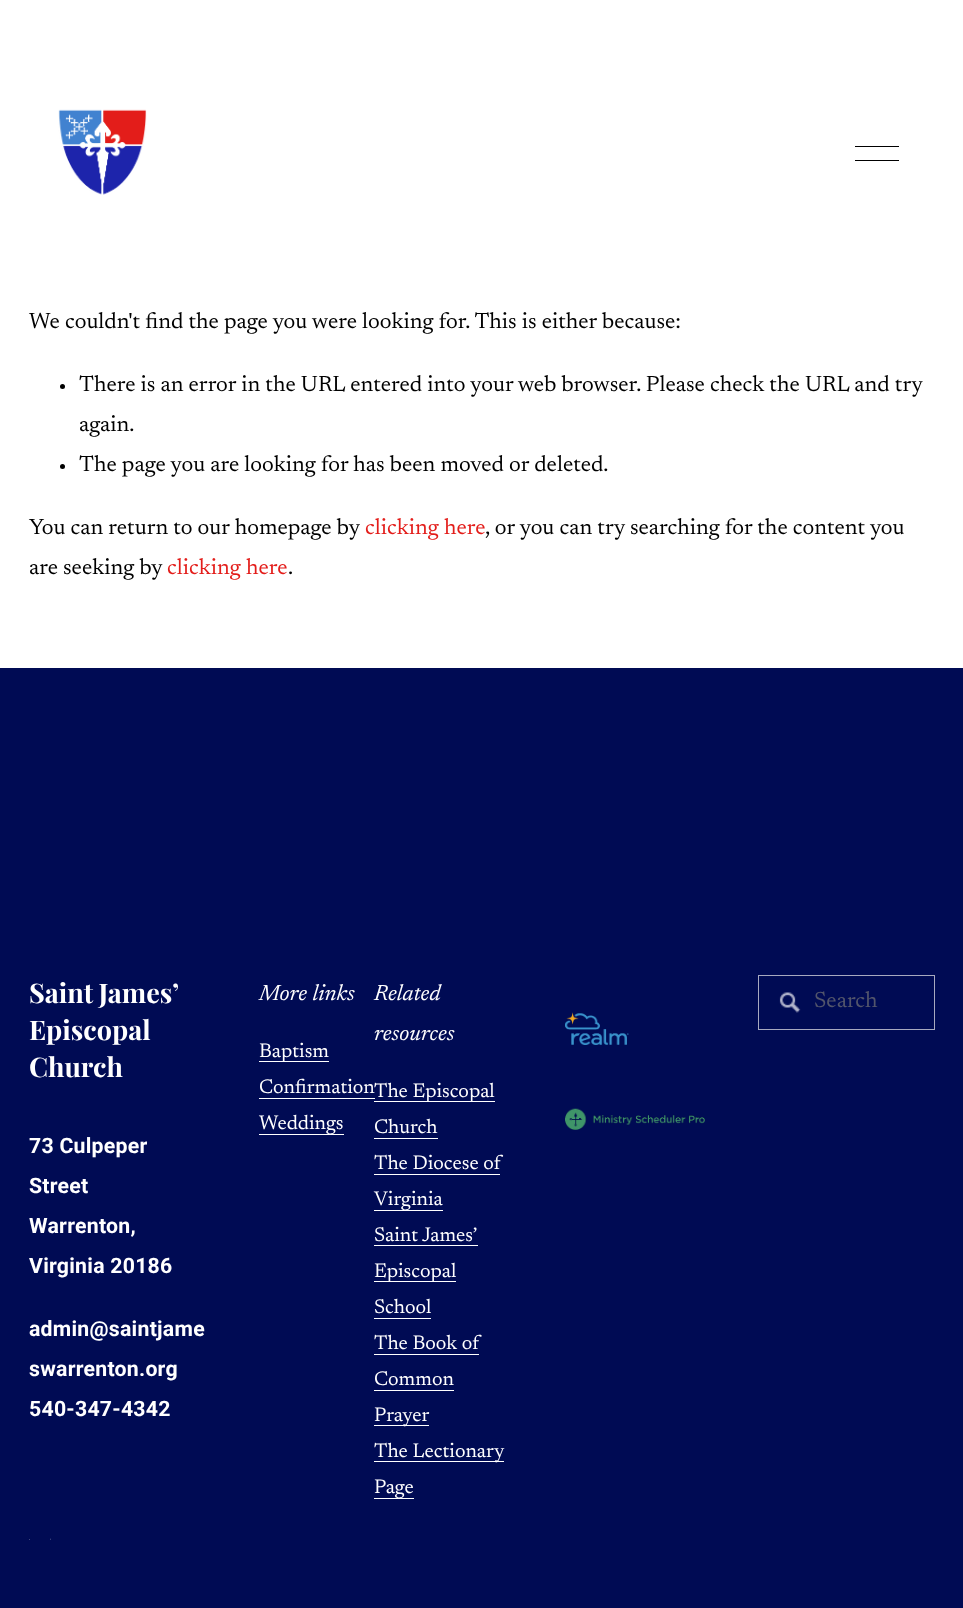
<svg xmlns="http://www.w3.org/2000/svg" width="963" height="1608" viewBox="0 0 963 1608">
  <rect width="100%" height="100%" fill="rgb(255,255,255)"/>
  <image x="58" y="109" width="89" height="86" href="pic1.png"/>
  <rect x="855" y="146" width="44" height="1" fill="rgb(0,0,0)"/>
  <rect x="855" y="160" width="44" height="1" fill="rgb(0,0,0)"/>
  <text x="29" y="328" font-family="Newsreader" font-size="22.3" fill="rgb(0,0,0)">We couldn't find the page you were looking for. This is either because:</text>
  <circle cx="62.5" cy="386.5" r="2.5" fill="rgb(0,0,0)"/>
  <g font-family="Newsreader" font-size="22.3" fill="rgb(0,0,0)">
    <text>
      <tspan x="79" y="391">There is an error in the URL entered into your web browser. Please check the URL and try</tspan>
      <tspan x="79" y="431">again.</tspan>
    </text>
  </g>
  <circle cx="62.5" cy="466.5" r="2.5" fill="rgb(0,0,0)"/>
  <g font-family="Newsreader" font-size="22.3" fill="rgb(0,0,0)">
    <text x="79" y="471">The page you are looking for has been moved or deleted.</text>
    <text x="29" y="534">You can return to our homepage by</text>
  </g>
  <text x="365" y="534" font-family="Newsreader" font-size="22.3" fill="rgb(227,29,26)">clicking here</text>
  <g font-family="Newsreader" font-size="22.3" fill="rgb(0,0,0)">
    <text x="485" y="534">, or you can try searching for the content you</text>
    <text x="29" y="574">are seeking by</text>
  </g>
  <text x="167" y="574" font-family="Newsreader" font-size="22.3" fill="rgb(227,29,26)">clicking here</text>
  <text x="288" y="574" font-family="Newsreader" font-size="22.3" fill="rgb(0,0,0)">.</text>
  <rect x="0" y="668" width="963" height="940" fill="rgb(0,11,84)"/>
  <g font-family="Playfair Display" font-size="27" font-weight="bold" fill="rgb(255,255,255)">
    <text>
      <tspan x="29" y="1003" word-spacing="-1">Saint James’</tspan>
      <tspan x="29" y="1040">Episcopal</tspan>
      <tspan x="29" y="1077">Church</tspan>
    </text>
  </g>
  <g font-family="Roboto" font-size="21.25" font-weight="bold" letter-spacing="0.25" fill="rgb(255,255,255)">
    <text>
      <tspan x="29" y="1153">73 Culpeper</tspan>
      <tspan x="29" y="1193">Street</tspan>
      <tspan x="29" y="1233">Warrenton,</tspan>
      <tspan x="29" y="1273">Virginia 20186</tspan>
    </text>
    <text>
      <tspan x="29" y="1336">admin@saintjame</tspan>
      <tspan x="29" y="1376">swarrenton.org</tspan>
      <tspan x="29" y="1416">540-347-4342</tspan>
    </text>
  </g>
  <text x="259" y="1000" font-family="Newsreader" font-size="22.3" font-style="italic" fill="rgb(255,255,255)">More links</text>
  <rect x="259" y="1061" width="70" height="1" fill="rgb(255,255,255)"/>
  <g font-family="Newsreader" font-size="20" fill="rgb(255,255,255)">
    <text>
      <tspan x="259" y="1057">Baptism</tspan>
      <tspan x="259" y="1093">Confirmation</tspan>
    </text>
  </g>
  <rect x="259" y="1098" width="116" height="1" fill="rgb(255,255,255)"/>
  <rect x="259" y="1134" width="85" height="1" fill="rgb(255,255,255)"/>
  <text x="259" y="1129" font-family="Newsreader" font-size="20" fill="rgb(255,255,255)">Weddings</text>
  <g font-family="Newsreader" font-size="22.3" font-style="italic" fill="rgb(255,255,255)">
    <text>
      <tspan x="374" y="1000">Related</tspan>
      <tspan x="374" y="1040">resources</tspan>
    </text>
  </g>
  <rect x="374" y="1101" width="121" height="1" fill="rgb(255,255,255)"/>
  <g font-family="Newsreader" font-size="20" fill="rgb(255,255,255)">
    <text>
      <tspan x="374" y="1097">The Episcopal</tspan>
      <tspan x="374" y="1133">Church</tspan>
    </text>
  </g>
  <rect x="374" y="1138" width="64" height="1" fill="rgb(255,255,255)"/>
  <text x="374" y="1169" font-family="Newsreader" font-size="20" fill="rgb(255,255,255)">The Diocese of</text>
  <rect x="374" y="1174" width="126" height="1" fill="rgb(255,255,255)"/>
  <rect x="374" y="1210" width="69" height="1" fill="rgb(255,255,255)"/>
  <g font-family="Newsreader" font-size="20" fill="rgb(255,255,255)">
    <text>
      <tspan x="374" y="1205">Virginia</tspan>
      <tspan x="374" y="1241">Saint James’</tspan>
    </text>
  </g>
  <rect x="374" y="1245" width="104" height="1" fill="rgb(255,255,255)"/>
  <rect x="374" y="1281" width="82" height="1" fill="rgb(255,255,255)"/>
  <g font-family="Newsreader" font-size="20" fill="rgb(255,255,255)">
    <text>
      <tspan x="374" y="1277">Episcopal</tspan>
      <tspan x="374" y="1313">School</tspan>
    </text>
  </g>
  <rect x="374" y="1318" width="57" height="1" fill="rgb(255,255,255)"/>
  <text x="374" y="1349" font-family="Newsreader" font-size="20" fill="rgb(255,255,255)">The Book of</text>
  <rect x="374" y="1354" width="105" height="1" fill="rgb(255,255,255)"/>
  <text x="374" y="1385" font-family="Newsreader" font-size="20" fill="rgb(255,255,255)">Common</text>
  <rect x="374" y="1390" width="80" height="1" fill="rgb(255,255,255)"/>
  <rect x="374" y="1425" width="55" height="1" fill="rgb(255,255,255)"/>
  <text x="374" y="1421" font-family="Newsreader" font-size="20" fill="rgb(255,255,255)">Prayer</text>
  <rect x="374" y="1461" width="130" height="1" fill="rgb(255,255,255)"/>
  <text x="374" y="1457" font-family="Newsreader" font-size="20" fill="rgb(255,255,255)">The Lectionary</text>
  <rect x="374" y="1498" width="40" height="1" fill="rgb(255,255,255)"/>
  <text x="374" y="1493" font-family="Newsreader" font-size="20" fill="rgb(255,255,255)">Page</text>
  <image x="779" y="992" width="22" height="21" href="pic2.png"/>
  <rect x="758.5" y="975.5" width="176" height="54" fill="none" stroke="rgb(167,170,192)"/>
  <text x="814" y="1007" font-family="Newsreader" font-size="22.3" fill="rgb(82,85,107)">Search</text>
  <image x="565" y="1012" width="64" height="33" href="pic3.png"/>
  <image x="565" y="1108" width="140" height="22" href="pic4.png"/>
  <path d="M29 1540L29.5 1539H29Z" fill="rgb(255,255,255)"/>
  <image x="50" y="1538" width="1" height="2" href="pic5.png"/>
</svg>
